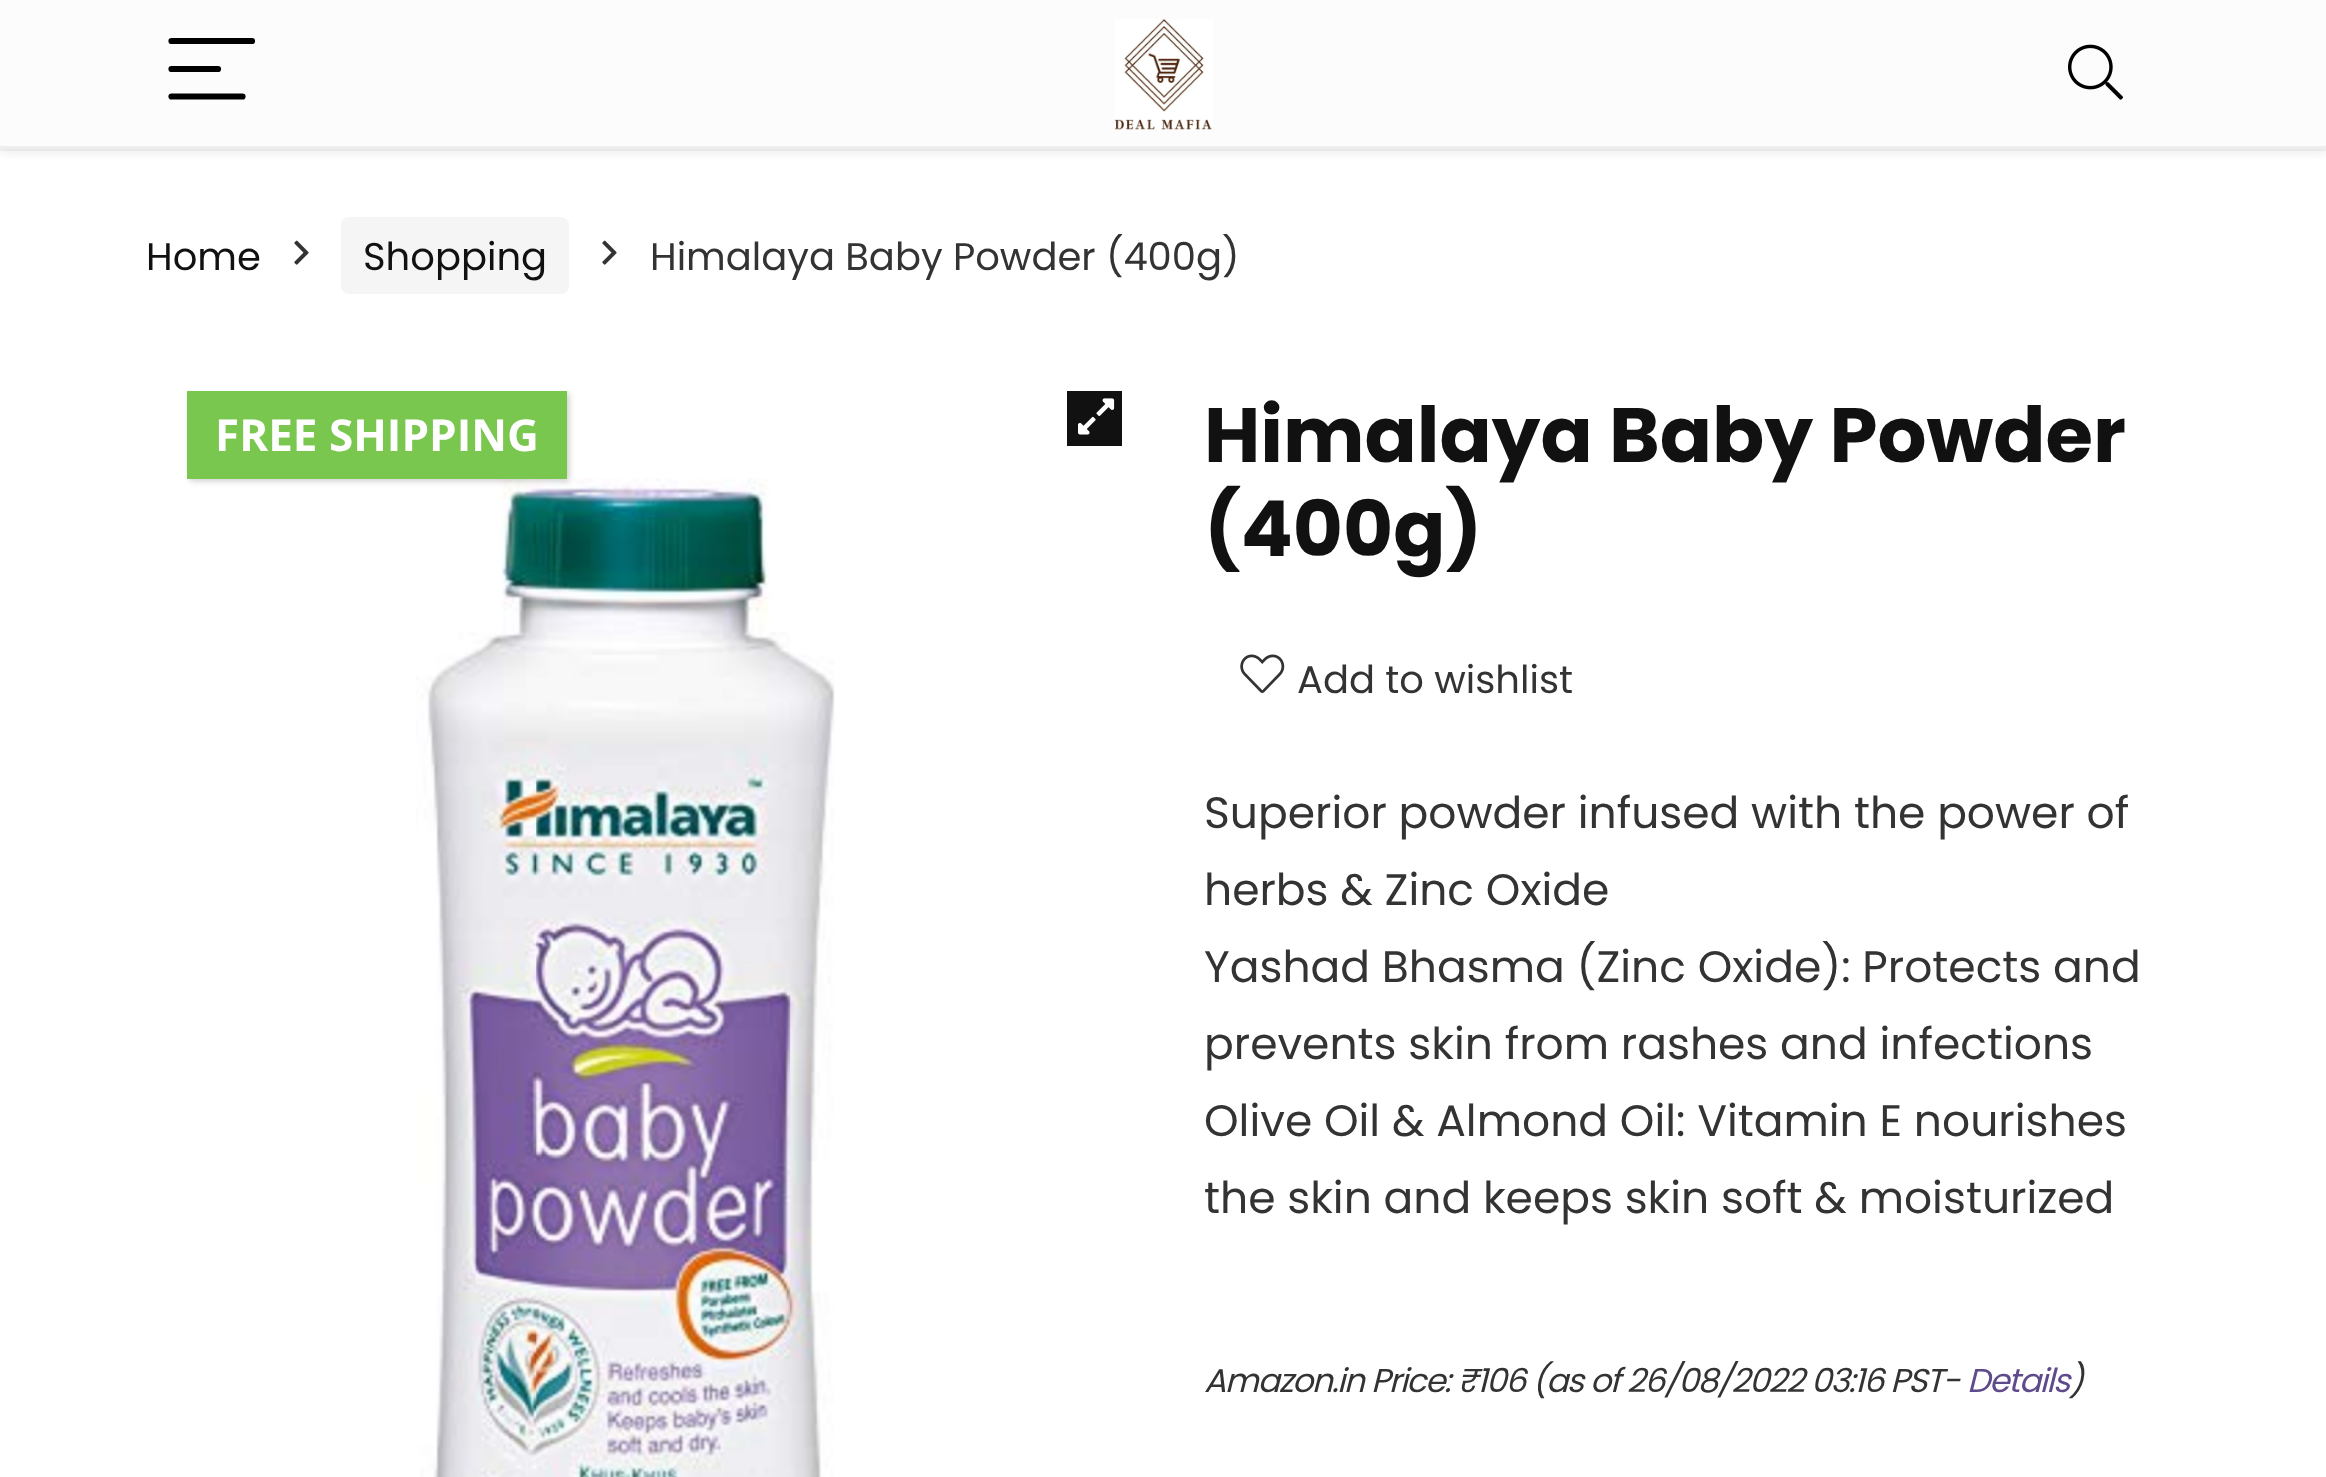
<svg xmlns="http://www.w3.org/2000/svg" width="2326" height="1477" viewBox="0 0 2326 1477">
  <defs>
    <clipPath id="clip1"><rect x="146" y="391" width="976" height="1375"/></clipPath>
  </defs>
  <rect width="100%" height="100%" fill="rgb(255,255,255)"/>
  <rect x="-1.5" y="-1.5" width="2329" height="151" fill="none" stroke="rgb(247,247,247)" stroke-width="3"/>
  <rect x="0" y="3" width="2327" height="148" fill="rgba(0,0,0,0.1)" filter="blur(5.5px)"/>
  <rect x="0" y="0" width="2326" height="146" fill="rgb(252,252,252)"/>
  <rect x="0" y="146" width="2326" height="3" fill="rgb(238,238,238)"/>
  <path d="M171.5 41H252" fill="none" stroke="rgb(0,0,0)" stroke-width="6.2" stroke-linecap="round"/>
  <path d="M171.5 69H218" fill="none" stroke="rgb(0,0,0)" stroke-width="6.2" stroke-linecap="round"/>
  <path d="M171.5 96.5H242.5" fill="none" stroke="rgb(0,0,0)" stroke-width="6.2" stroke-linecap="round"/>
  <image x="1115" y="19" width="98" height="111" href="pic1.png"/>
  <image x="2068" y="44" width="55" height="56" href="pic2.png"/>
  <text x="146" y="270" font-family="Poppins" font-size="38.5" fill="rgb(17,17,17)">Home</text>
  <image x="294" y="240" width="15" height="25" href="pic3.png"/>
  <rect x="341" y="217" width="228" height="77" rx="8" fill="rgb(245,245,245)"/>
  <text x="363" y="270" font-family="Poppins" font-size="38.5" fill="rgb(17,17,17)">Shopping</text>
  <image x="602" y="240" width="15" height="25" href="pic3.png"/>
  <text x="650" y="270" font-family="Poppins" font-size="38.5" fill="rgb(51,51,51)">Himalaya Baby Powder (400g)</text>
  <image x="416" y="478" width="419" height="999" href="pic4.png"/>
  <g clip-path="url(#clip1)">
    <rect x="190" y="393" width="379" height="88" fill="rgba(0,0,0,0.2)" filter="blur(3px)"/>
  </g>
  <rect x="187" y="391" width="380" height="88" fill="rgb(122,199,79)"/>
  <text x="215" y="451" font-family="Open Sans" font-size="44" font-weight="bold" fill="rgb(255,255,255)">FREE SHIPPING</text>
  <rect x="1067" y="391" width="55" height="55" fill="rgb(17,17,17)"/>
  <image x="1078" y="398" width="37" height="37" href="pic5.png"/>
  <g font-family="Poppins" font-size="77" font-weight="bold" fill="rgb(17,17,17)">
    <text>
      <tspan x="1204" y="462">Himalaya Baby Powder</tspan>
      <tspan x="1204" y="556">(400g)</tspan>
    </text>
  </g>
  <image x="1240" y="654" width="45" height="39" href="pic6.png"/>
  <text x="1297" y="693" font-family="Poppins" font-size="38.5" fill="rgb(51,51,51)">Add to wishlist</text>
  <g font-family="Poppins" font-size="44" fill="rgb(51,51,51)">
    <text>
      <tspan x="1204" y="828">Superior powder infused with the power of</tspan>
      <tspan x="1204" y="905">herbs &amp; Zinc Oxide</tspan>
      <tspan x="1204" y="982">Yashad Bhasma (Zinc Oxide): Protects and</tspan>
      <tspan x="1204" y="1059">prevents skin from rashes and infections</tspan>
      <tspan x="1204" y="1136">Olive Oil &amp; Almond Oil: Vitamin E nourishes</tspan>
      <tspan x="1204" y="1213">the skin and keeps skin soft &amp; moisturized</tspan>
    </text>
  </g>
  <text x="1204" y="1392" font-family="Poppins" font-size="33" font-style="italic" letter-spacing="-1.38" fill="rgb(51,51,51)">Amazon.in Price: ₹106 (as of 26/08/2022 03:16 PST-</text>
  <text x="1967" y="1392" font-family="Poppins" font-size="33" font-style="italic" letter-spacing="-1.38" fill="rgb(95,75,139)">Details</text>
  <text x="2069" y="1392" font-family="Poppins" font-size="33" font-style="italic" letter-spacing="-1.38" fill="rgb(51,51,51)">)</text>
</svg>
